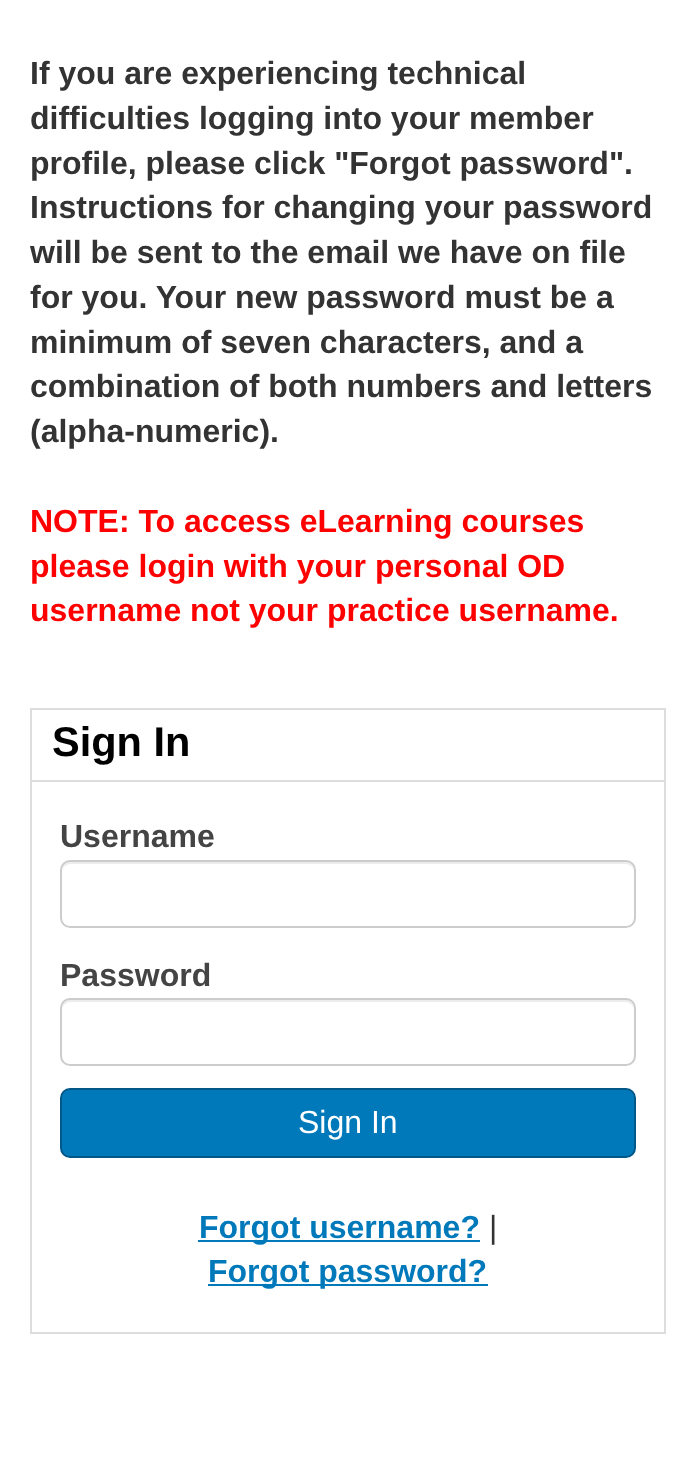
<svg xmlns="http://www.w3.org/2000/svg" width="695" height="1468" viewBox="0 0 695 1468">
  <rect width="100%" height="100%" fill="rgb(255,255,255)"/>
  <g font-family="Liberation Sans" font-size="32" font-weight="bold" fill="rgb(51,51,51)">
    <text>
      <tspan x="30" y="84">If you are experiencing technical</tspan>
      <tspan x="30" y="129">difficulties logging into your member</tspan>
      <tspan x="30" y="174">profile, please click "Forgot password".</tspan>
      <tspan x="30" y="218">Instructions for changing your password</tspan>
      <tspan x="30" y="263">will be sent to the email we have on file</tspan>
      <tspan x="30" y="308">for you. Your new password must be a</tspan>
      <tspan x="30" y="353">minimum of seven characters, and a</tspan>
      <tspan x="30" y="397">combination of both numbers and letters</tspan>
      <tspan x="30" y="442">(alpha-numeric).</tspan>
    </text>
  </g>
  <g font-family="Liberation Sans" font-size="32" font-weight="bold" fill="rgb(255,0,0)">
    <text>
      <tspan x="30" y="532">NOTE: To access eLearning courses</tspan>
      <tspan x="30" y="577">please login with your personal OD</tspan>
      <tspan x="30" y="621">username not your practice username.</tspan>
    </text>
  </g>
  <rect x="31" y="709" width="634" height="624" fill="none" stroke="rgb(221,221,221)" stroke-width="2"/>
  <rect x="32" y="780" width="632" height="2" fill="rgb(221,221,221)"/>
  <text x="52" y="756" font-family="Liberation Sans" font-size="41.5" font-weight="bold" fill="rgb(0,0,0)">Sign In</text>
  <text x="60" y="847" font-family="Liberation Sans" font-size="32" font-weight="bold" fill="rgb(68,68,68)">Username</text>
  <path d="M70 864H626C630 864 634 868 634 872C634 867 632 862 626 862H70C64 862 62 867 62 872C62 868 66 864 70 864Z" fill="rgb(236,236,236)"/>
  <rect x="61" y="861" width="574" height="66" rx="9" fill="none" stroke="rgb(204,204,204)" stroke-width="2"/>
  <text x="60" y="986" font-family="Liberation Sans" font-size="32" font-weight="bold" fill="rgb(68,68,68)">Password</text>
  <path d="M70 1002H626C630 1002 634 1006 634 1010C634 1005 632 1000 626 1000H70C64 1000 62 1005 62 1010C62 1006 66 1002 70 1002Z" fill="rgb(236,236,236)"/>
  <rect x="61" y="999" width="574" height="66" rx="9" fill="none" stroke="rgb(204,204,204)" stroke-width="2"/>
  <rect x="61" y="1089" width="574" height="68" rx="9" fill="rgb(0,121,187)" stroke="rgb(0,88,136)" stroke-width="2"/>
  <text x="298" y="1133" font-family="Liberation Sans" font-size="32" fill="rgb(255,255,255)">Sign In</text>
  <rect x="198" y="1240" width="282" height="2" fill="rgb(0,121,187)"/>
  <text x="199" y="1238" font-family="Liberation Sans" font-size="32" font-weight="bold" fill="rgb(0,121,187)">Forgot username?</text>
  <text x="489" y="1238" font-family="Liberation Sans" font-size="32" fill="rgb(51,51,51)">|</text>
  <rect x="208" y="1284" width="280" height="2" fill="rgb(0,121,187)"/>
  <text x="208" y="1282" font-family="Liberation Sans" font-size="32" font-weight="bold" fill="rgb(0,121,187)">Forgot password?</text>
</svg>
